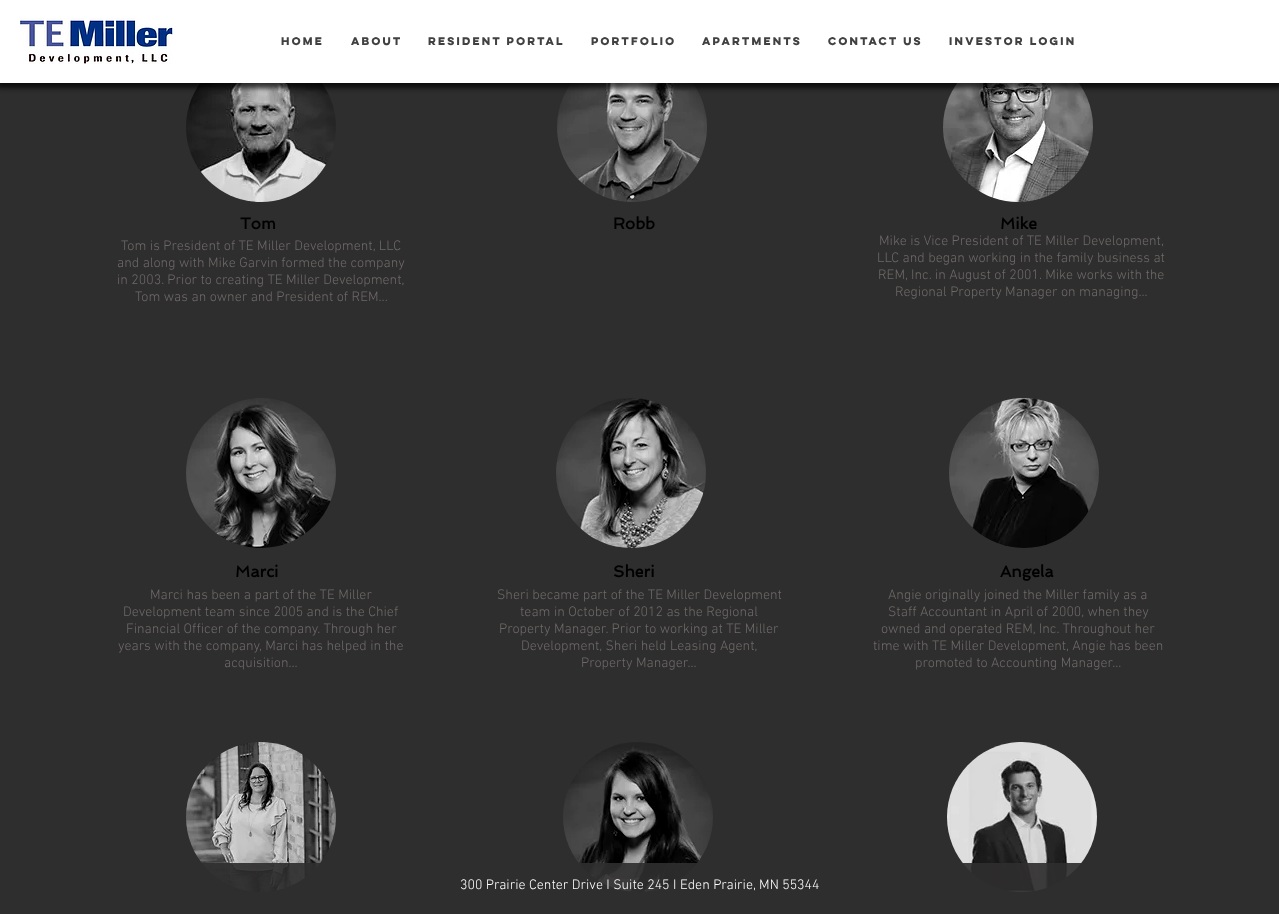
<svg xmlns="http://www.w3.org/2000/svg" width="1279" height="914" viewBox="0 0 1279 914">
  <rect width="100%" height="100%" fill="rgb(47,46,46)"/>
  <image x="186" y="83" width="150" height="119" href="pic2.png"/>
  <image x="557" y="83" width="150" height="119" href="pic3.png"/>
  <image x="943" y="83" width="150" height="119" href="pic4.png"/>
  <rect x="-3" y="-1" width="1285" height="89" fill="rgba(0,0,0,0.7)" filter="blur(2.5px)"/>
  <rect x="0" y="0" width="1279" height="83" fill="rgb(255,255,255)"/>
  <image x="20" y="18" width="153" height="46" href="pic1.png"/>
  <g font-family="'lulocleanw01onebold'" font-size="10" font-weight="bold" fill="rgb(65,65,65)">
    <text x="281" y="45">HOME</text>
    <text x="351" y="45">ABOUT</text>
    <text x="428" y="45">RESIDENT PORTAL</text>
    <text x="591" y="45">PORTFOLIO</text>
    <text x="702" y="45">APARTMENTS</text>
    <text x="828" y="45">CONTACT US</text>
    <text x="949" y="45">INVESTOR LOGIN</text>
  </g>
  <g font-family="Spinnaker" font-size="16" font-weight="bold" fill="rgb(0,0,0)">
    <text x="240" y="229">Tom</text>
    <text x="613" y="229">Robb</text>
    <text x="1000" y="229">Mike</text>
  </g>
  <g font-family="'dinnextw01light'" font-size="14" font-weight="300" fill="rgb(110,105,104)">
    <text x="121" y="250">Tom is President of TE Miller Development, LLC</text>
    <text>
      <tspan x="117" y="267">and along with Mike Garvin formed the company</tspan>
      <tspan x="117" y="284">in 2003. Prior to creating TE Miller Development,</tspan>
    </text>
    <text x="135" y="301">Tom was an owner and President of REM...</text>
    <text x="879" y="245">Mike is Vice President of TE Miller Development,</text>
    <text x="877" y="262">LLC and began working in the family business at</text>
    <text x="878" y="279">REM, Inc. in August of 2001. Mike works with the</text>
    <text x="895" y="296">Regional Property Manager on managing...</text>
  </g>
  <image x="186" y="398" width="150" height="150" href="pic5.png"/>
  <image x="556" y="398" width="150" height="150" href="pic6.png"/>
  <image x="949" y="398" width="150" height="150" href="pic7.png"/>
  <g font-family="Spinnaker" font-size="16" font-weight="bold" fill="rgb(0,0,0)">
    <text x="235" y="577">Marci</text>
    <text x="613" y="577">Sheri</text>
    <text x="1000" y="577">Angela</text>
  </g>
  <g font-family="'dinnextw01light'" font-size="14" font-weight="300" fill="rgb(110,105,104)">
    <text x="150" y="599">Marci has been a part of the TE Miller</text>
    <text x="123" y="616">Development team since 2005 and is the Chief</text>
    <text x="126" y="633">Financial Officer of the company. Through her</text>
    <text x="118" y="650">years with the company, Marci has helped in the</text>
    <text x="224" y="667">acquisition...</text>
    <text x="497" y="599">Sheri became part of the TE Miller Development</text>
    <text x="520" y="616">team in October of 2012 as the Regional</text>
    <text x="499" y="633">Property Manager. Prior to working at TE Miller</text>
    <text x="521" y="650">Development, Sheri held Leasing Agent,</text>
    <text x="581" y="667">Property Manager...</text>
    <text>
      <tspan x="888" y="599">Angie originally joined the Miller family as a</tspan>
      <tspan x="888" y="616">Staff Accountant in April of 2000, when they</tspan>
    </text>
    <text x="881" y="633">owned and operated REM, Inc. Throughout her</text>
    <text x="873" y="650">time with TE Miller Development, Angie has been</text>
    <text x="915" y="667">promoted to Accounting Manager...</text>
  </g>
  <image x="186" y="742" width="150" height="150" href="pic8.png"/>
  <image x="563" y="742" width="150" height="150" href="pic9.png"/>
  <image x="947" y="742" width="150" height="150" href="pic10.png"/>
  <rect x="202" y="863" width="879" height="29" fill="rgba(47,46,46,0.78)"/>
  <rect x="202" y="863" width="879" height="29" fill="rgba(47,46,46,0.63)"/>
  <text x="460" y="889" font-family="'dinnextw01light'" font-size="14" font-weight="300" fill="rgb(255,255,255)">300 Prairie Center Drive I Suite 245 I Eden Prairie, MN 55344</text>
</svg>
